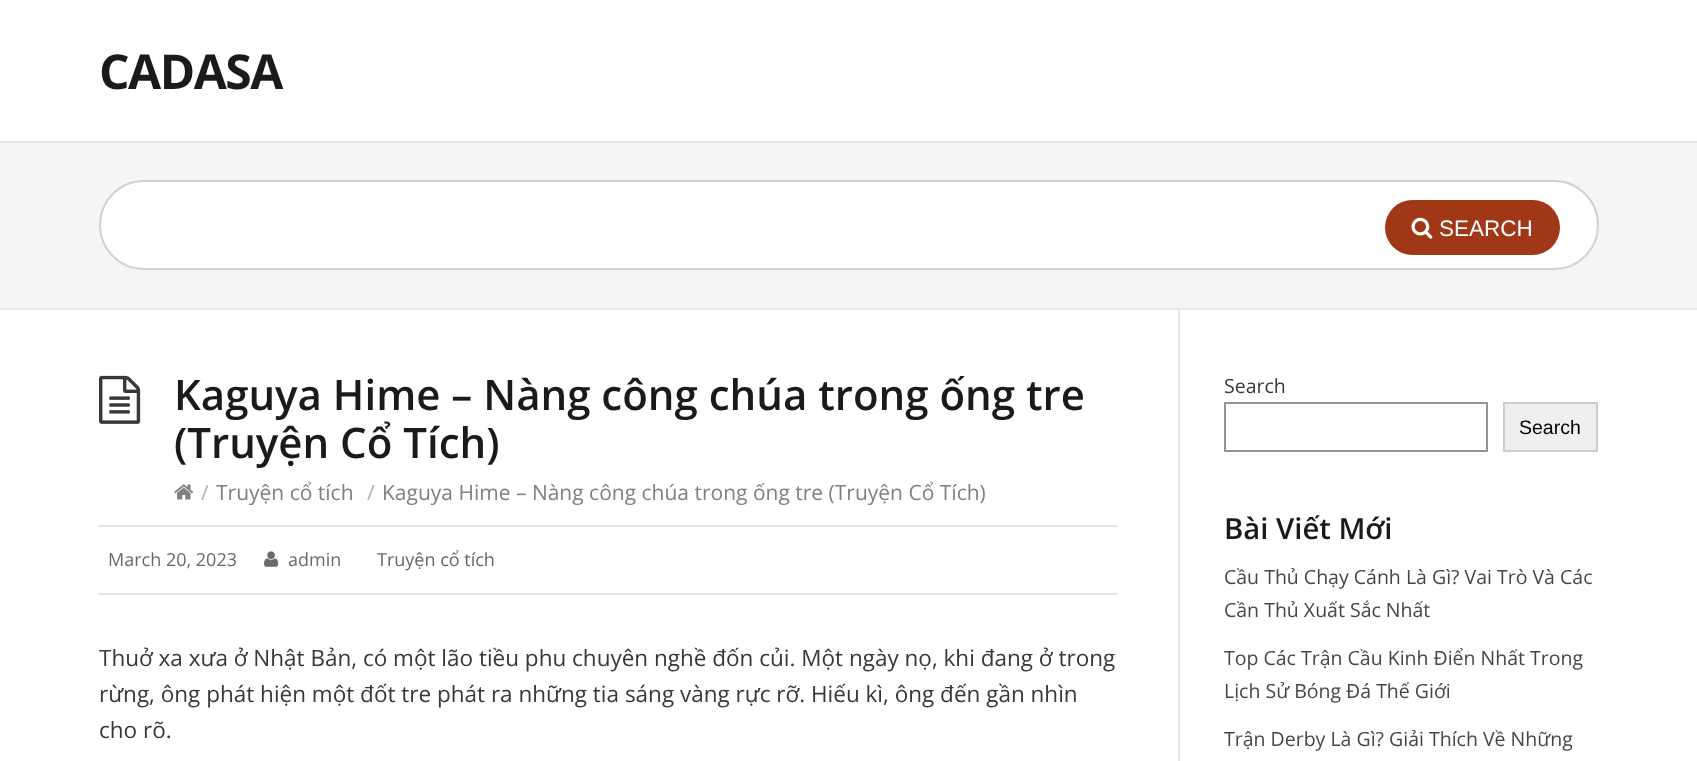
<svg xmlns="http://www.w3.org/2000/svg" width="1697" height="761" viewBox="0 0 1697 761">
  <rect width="100%" height="100%" fill="rgb(255,255,255)"/>
  <text x="99" y="89" font-family="Open Sans" font-size="48" font-weight="bold" letter-spacing="-1.5" fill="rgb(26,26,26)">CADASA</text>
  <rect x="0" y="143" width="1697" height="165" fill="rgb(245,245,245)"/>
  <rect x="0" y="141" width="1697" height="2" fill="rgb(232,232,232)"/>
  <rect x="0" y="308" width="1697" height="2" fill="rgb(232,232,232)"/>
  <rect x="100" y="181" width="1498" height="88" rx="44" fill="rgb(255,255,255)" stroke="rgb(209,209,209)" stroke-width="2"/>
  <rect x="1385" y="200" width="175" height="55" rx="27.5" fill="rgb(160,55,23)"/>
  <image x="1411" y="217" width="22" height="22" href="pic1.png"/>
  <text x="1439" y="236" font-family="Liberation Sans" font-size="22.5" fill="rgb(255,255,255)">SEARCH</text>
  <rect x="1178" y="309" width="2" height="452" fill="rgb(230,230,230)"/>
  <rect x="99" y="525" width="1019" height="2" fill="rgb(230,230,230)"/>
  <image x="99" y="375" width="42" height="49" href="pic2.png"/>
  <g font-family="Open Sans" font-size="42" font-weight="600" fill="rgb(26,26,26)">
    <text>
      <tspan x="174" y="410">Kaguya Hime – Nàng công chúa trong ống tre</tspan>
      <tspan x="174" y="458">(Truyện Cổ Tích)</tspan>
    </text>
  </g>
  <image x="174" y="484" width="20" height="16" href="pic3.png"/>
  <text x="201" y="500" font-family="Open Sans" font-size="21" fill="rgb(179,179,179)">/</text>
  <text x="216" y="500" font-family="Open Sans" font-size="21" fill="rgb(128,128,128)">Truyện cổ tích</text>
  <text x="367" y="500" font-family="Open Sans" font-size="21" fill="rgb(179,179,179)">/</text>
  <text x="382" y="500" font-family="Open Sans" font-size="21" fill="rgb(128,128,128)">Kaguya Hime – Nàng công chúa trong ống tre (Truyện Cổ Tích)</text>
  <rect x="99" y="593" width="1019" height="2" fill="rgb(230,230,230)"/>
  <text x="108" y="566" font-family="Open Sans" font-size="18" fill="rgb(107,103,115)">March 20, 2023</text>
  <image x="264" y="551" width="15" height="16" href="pic4.png"/>
  <text x="288" y="566" font-family="Open Sans" font-size="18" fill="rgb(107,103,115)">admin</text>
  <text x="377" y="566" font-family="Open Sans" font-size="18" fill="rgb(102,102,102)">Truyện cổ tích</text>
  <g font-family="Open Sans" font-size="22.5" fill="rgb(56,56,56)">
    <text>
      <tspan x="99" y="666">Thuở xa xưa ở Nhật Bản, có một lão tiều phu chuyên nghề đốn củi. Một ngày nọ, khi đang ở trong</tspan>
      <tspan x="99" y="702">rừng, ông phát hiện một đốt tre phát ra những tia sáng vàng rực rỡ. Hiếu kì, ông đến gần nhìn</tspan>
      <tspan x="99" y="738">cho rõ.</tspan>
    </text>
  </g>
  <text x="1224" y="393" font-family="Open Sans" font-size="19.5" fill="rgb(56,56,56)">Search</text>
  <rect x="1225" y="403" width="262" height="48" fill="none" stroke="rgb(148,148,148)" stroke-width="2"/>
  <rect x="1504" y="403" width="93" height="48" fill="rgb(239,239,239)" stroke="rgb(204,204,204)" stroke-width="2"/>
  <text x="1519" y="434" font-family="Liberation Sans" font-size="19.5" fill="rgb(0,0,0)">Search</text>
  <text x="1224" y="539" font-family="Open Sans" font-size="29.25" font-weight="600" fill="rgb(26,26,26)">Bài Viết Mới</text>
  <g font-family="Open Sans" font-size="19.5" fill="rgb(69,69,76)">
    <text>
      <tspan x="1224" y="584">Cầu Thủ Chạy Cánh Là Gì? Vai Trò Và Các</tspan>
      <tspan x="1224" y="617">Cần Thủ Xuất Sắc Nhất</tspan>
    </text>
    <text>
      <tspan x="1224" y="665">Top Các Trận Cầu Kinh Điển Nhất Trong</tspan>
      <tspan x="1224" y="698">Lịch Sử Bóng Đá Thế Giới</tspan>
    </text>
    <text x="1224" y="746">Trận Derby Là Gì? Giải Thích Về Những</text>
  </g>
</svg>
